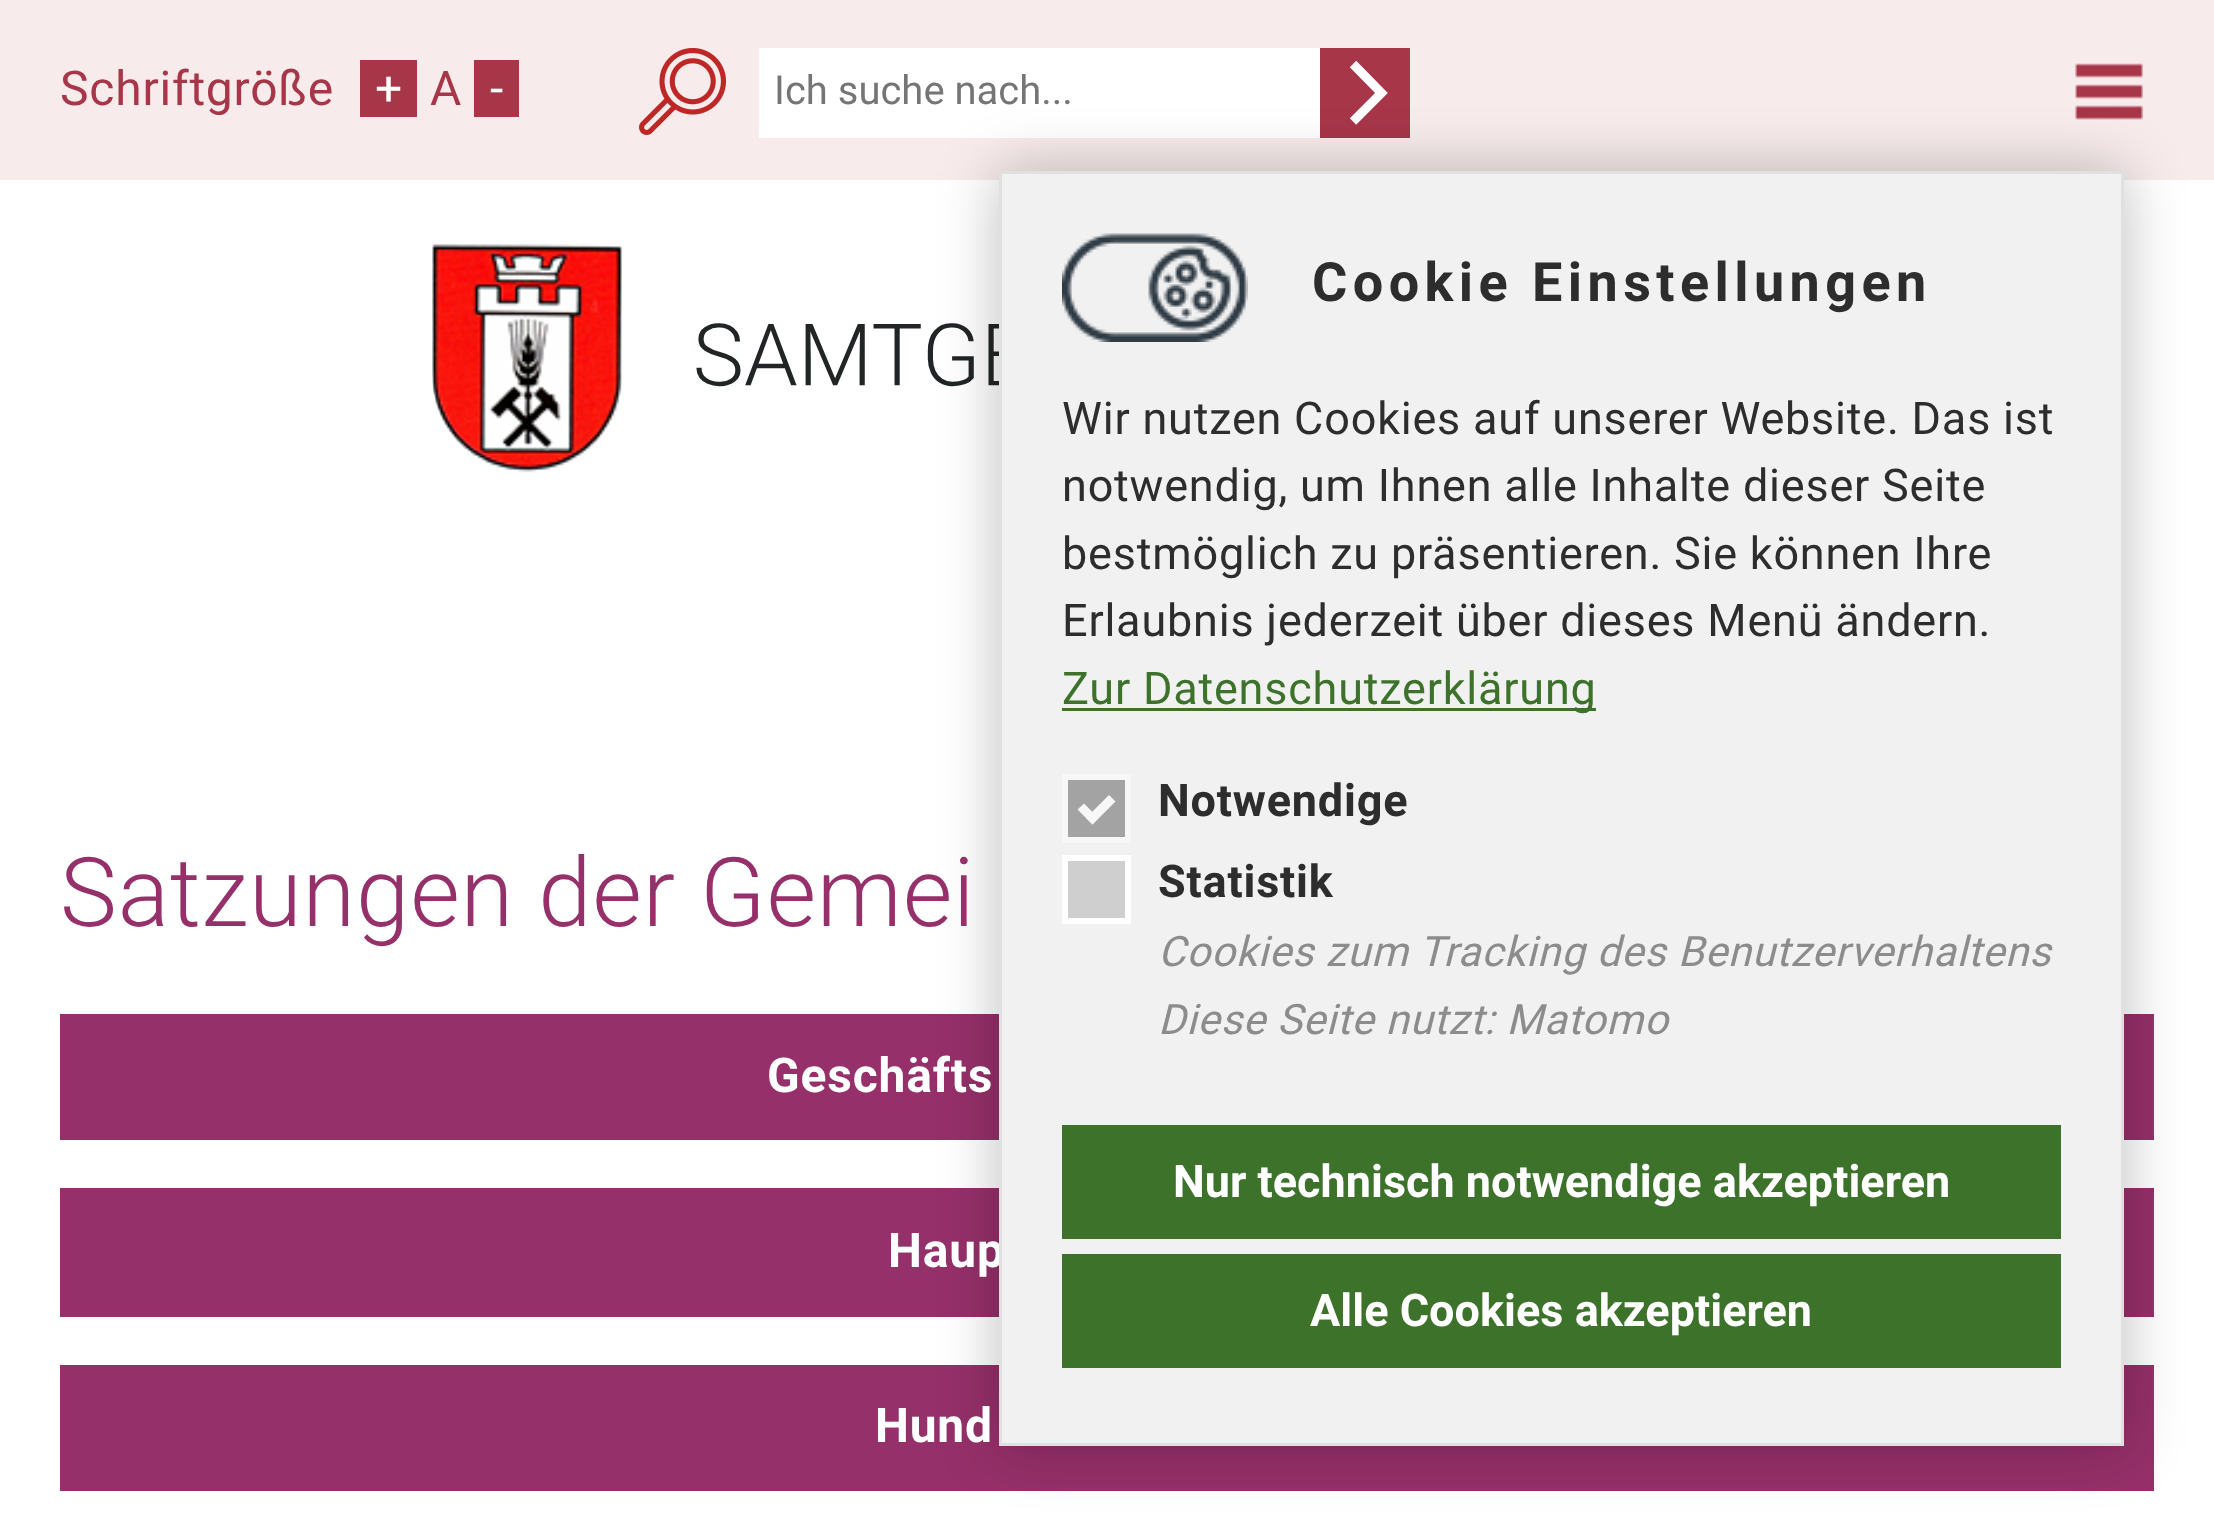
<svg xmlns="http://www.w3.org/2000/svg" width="2214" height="1536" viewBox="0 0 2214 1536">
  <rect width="100%" height="100%" fill="rgb(255,255,255)"/>
  <rect x="0" y="0" width="2214" height="180" fill="rgb(247,235,235)"/>
  <text x="60" y="105" font-family="Roboto" font-size="48" letter-spacing="0.8" fill="rgb(167,54,73)">Schriftgröße</text>
  <rect x="360" y="60" width="57" height="57" fill="rgb(167,54,73)"/>
  <text x="375" y="105" font-family="Roboto" font-size="48" letter-spacing="0.8" fill="rgb(255,255,255)">+</text>
  <text x="430" y="105" font-family="Roboto" font-size="48" letter-spacing="0.8" fill="rgb(167,54,73)">A</text>
  <rect x="474" y="60" width="45" height="57" fill="rgb(167,54,73)"/>
  <text x="490" y="105" font-family="Roboto" font-size="48" letter-spacing="0.8" fill="rgb(255,255,255)">-</text>
  <image x="639" y="48" width="87" height="87" href="pic1.png"/>
  <rect x="759" y="48" width="561" height="90" fill="rgb(255,255,255)"/>
  <text x="774" y="104" font-family="Roboto" font-size="40" fill="rgb(117,117,117)">Ich suche nach...</text>
  <rect x="1320" y="48" width="90" height="90" fill="rgb(167,54,73)"/>
  <path d="M1353 64L1381.5 93L1353 121.5" fill="none" stroke="rgb(255,255,255)" stroke-width="9"/>
  <image x="2075" y="63" width="68" height="57" href="pic2.png"/>
  <image x="432" y="244" width="567" height="229" href="pic3.png"/>
  <rect x="60" y="1014" width="2094" height="126" fill="rgb(150,48,106)"/>
  <rect x="60" y="1188" width="2094" height="129" fill="rgb(150,48,106)"/>
  <rect x="60" y="1365" width="2094" height="126" fill="rgb(150,48,106)"/>
  <rect x="999" y="171" width="1125" height="1275" fill="rgba(0,0,0,0.25)" filter="blur(30px)"/>
  <text x="888" y="1267" font-family="Roboto" font-size="48" font-weight="bold" letter-spacing="0.8" fill="rgb(255,255,255)">Haup</text>
  <rect x="1000.5" y="172.5" width="1122" height="1272" fill="rgb(241,241,241)" stroke="rgb(224,224,224)" stroke-width="3"/>
  <image x="1062" y="233" width="186" height="109" href="pic4.png"/>
  <text x="1312" y="301" font-family="Roboto" font-size="54" font-weight="bold" letter-spacing="5.4" fill="rgb(45,45,45)">Cookie Einstellungen</text>
  <g font-family="Roboto" font-size="45" letter-spacing="0.8" fill="rgb(45,45,45)">
    <text>
      <tspan x="1062" y="434">Wir nutzen Cookies auf unserer Website. Das ist</tspan>
      <tspan x="1062" y="501">notwendig, um Ihnen alle Inhalte dieser Seite</tspan>
      <tspan x="1062" y="569">bestmöglich zu präsentieren. Sie können Ihre</tspan>
      <tspan x="1062" y="636">Erlaubnis jederzeit über dieses Menü ändern.</tspan>
    </text>
  </g>
  <rect x="1062" y="708" width="534" height="3" fill="rgb(60,114,42)"/>
  <text x="1062" y="704" font-family="Roboto" font-size="45" letter-spacing="0.8" fill="rgb(60,114,42)">Zur Datenschutzerklärung</text>
  <rect x="1065" y="777" width="63" height="63" fill="rgb(163,163,163)" stroke="rgb(247,247,247)" stroke-width="6"/>
  <path d="M1109 795L1115.5 801.5L1092.5 824.5L1086 818Z" fill="rgb(247,247,247)"/>
  <path d="M1084 803.5L1098.5 818L1092.5 824.5L1077.5 809.5Z" fill="rgb(247,247,247)"/>
  <text x="1158" y="816" font-family="Roboto" font-size="45" font-weight="bold" letter-spacing="0.8" fill="rgb(45,45,45)">Notwendige</text>
  <rect x="1065" y="858" width="63" height="63" fill="rgb(207,207,207)" stroke="rgb(255,255,255)" stroke-width="6"/>
  <text x="1158" y="897" font-family="Roboto" font-size="45" font-weight="bold" letter-spacing="0.8" fill="rgb(45,45,45)">Statistik</text>
  <g font-family="Roboto" font-size="42" font-style="italic" letter-spacing="0.8" fill="rgb(140,140,140)">
    <text>
      <tspan x="1158" y="966">Cookies zum Tracking des Benutzerverhaltens</tspan>
      <tspan x="1158" y="1034">Diese Seite nutzt: Matomo</tspan>
    </text>
  </g>
  <rect x="1062" y="1125" width="999" height="114" fill="rgb(60,114,42)"/>
  <text x="1173" y="1197" font-family="Roboto" font-size="45" font-weight="bold" fill="rgb(255,255,255)">Nur technisch notwendige akzeptieren</text>
  <rect x="1062" y="1254" width="999" height="114" fill="rgb(60,114,42)"/>
  <text x="1310" y="1326" font-family="Roboto" font-size="45" font-weight="bold" fill="rgb(255,255,255)">Alle Cookies akzeptieren</text>
  <text x="60" y="926" font-family="Roboto" font-size="96" font-weight="300" letter-spacing="0.8" fill="rgb(150,48,106)">Satzungen der Gemei</text>
  <g font-family="Roboto" font-size="48" font-weight="bold" letter-spacing="0.8" fill="rgb(255,255,255)">
    <text x="767" y="1092">Geschäfts</text>
    <text x="875" y="1442">Hund</text>
  </g>
</svg>
